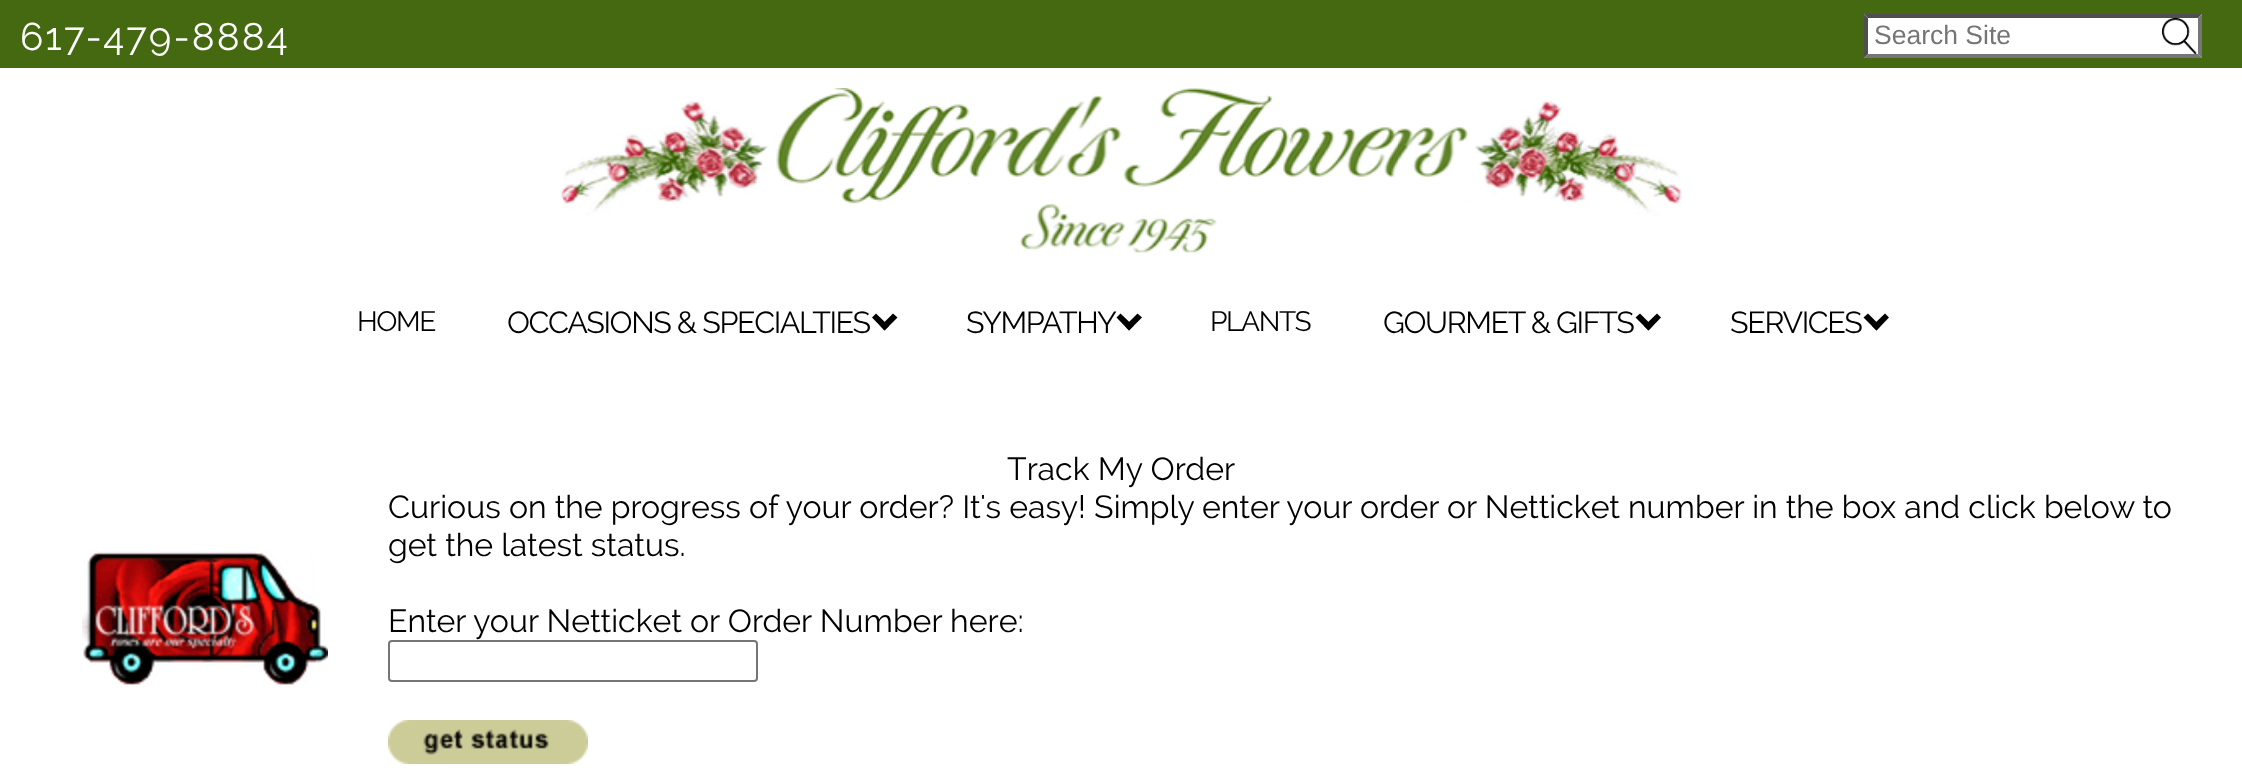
<svg xmlns="http://www.w3.org/2000/svg" width="2242" height="775" viewBox="0 0 2242 775">
  <rect width="100%" height="100%" fill="rgb(255,255,255)"/>
  <rect x="0" y="0" width="2242" height="68" fill="rgb(68,105,16)"/>
  <text x="20" y="50" font-family="Raleway" font-size="38.5" letter-spacing="2" fill="rgb(255,255,255)">617-479-8884</text>
  <rect x="1864" y="14" width="338" height="44" fill="rgb(255,255,255)"/>
  <image x="2162" y="18" width="35" height="36" href="pic1.png"/>
  <path d="M1864 14H2202L2198 18H1868Z" fill="rgb(79,79,79)"/>
  <path d="M2202 14V58L2198 54V18Z" fill="rgb(118,118,118)"/>
  <path d="M2202 58H1864L1868 54H2198Z" fill="rgb(118,118,118)"/>
  <path d="M1864 58V14L1868 18V54Z" fill="rgb(79,79,79)"/>
  <text x="1874" y="44" font-family="Liberation Sans" font-size="26.5" fill="rgb(117,117,117)">Search Site</text>
  <image x="561" y="88" width="1121" height="165" href="pic2.png"/>
  <text x="357" y="331" font-family="Raleway" font-size="28" letter-spacing="-1.4" fill="rgb(0,0,0)">HOME</text>
  <text x="507" y="333" font-family="Raleway" font-size="30.4" letter-spacing="-1.4" fill="rgb(0,0,0)">OCCASIONS &amp; SPECIALTIES</text>
  <path d="M893 313.5L897.5 317.5L884.5 330.5L880.5 326Z" fill="rgb(0,0,0)"/>
  <path d="M876 313.5L889 326L884.5 330.5L872 317.5Z" fill="rgb(0,0,0)"/>
  <text x="966" y="333" font-family="Raleway" font-size="30.4" letter-spacing="-1.4" fill="rgb(0,0,0)">SYMPATHY</text>
  <path d="M1137.5 313.5L1142 317.5L1129 330.5L1125 326Z" fill="rgb(0,0,0)"/>
  <path d="M1120.5 313.5L1133.5 326L1129 330.5L1116.5 317.5Z" fill="rgb(0,0,0)"/>
  <text x="1210" y="331" font-family="Raleway" font-size="28" letter-spacing="-1.4" fill="rgb(0,0,0)">PLANTS</text>
  <text x="1383" y="333" font-family="Raleway" font-size="30.4" letter-spacing="-1.4" fill="rgb(0,0,0)">GOURMET &amp; GIFTS</text>
  <path d="M1657 313.5L1661 317.5L1648.5 330.5L1644 326Z" fill="rgb(0,0,0)"/>
  <path d="M1640 313.5L1652.5 326L1648.5 330.5L1635.5 317.5Z" fill="rgb(0,0,0)"/>
  <text x="1730" y="333" font-family="Raleway" font-size="30.4" letter-spacing="-1.4" fill="rgb(0,0,0)">SERVICES</text>
  <path d="M1885 313.5L1889 317.5L1876.5 330.5L1872 326Z" fill="rgb(0,0,0)"/>
  <path d="M1868 313.5L1880.5 326L1876.5 330.5L1863.5 317.5Z" fill="rgb(0,0,0)"/>
  <text x="1007" y="480" font-family="Raleway" font-size="32" fill="rgb(0,0,0)">Track My Order</text>
  <image x="82" y="551" width="246" height="134" href="pic3.png"/>
  <g font-family="Raleway" font-size="32" fill="rgb(0,0,0)">
    <text>
      <tspan x="388" y="518">Curious on the progress of your order? It's easy! Simply enter your order or Netticket number in the box and click below to</tspan>
      <tspan x="388" y="556">get the latest status.</tspan>
    </text>
    <text x="388" y="632">Enter your Netticket or Order Number here:</text>
  </g>
  <rect x="389" y="641" width="368" height="40" rx="3" fill="none" stroke="rgb(118,118,118)" stroke-width="2"/>
  <image x="388" y="720" width="200" height="44" href="pic4.png"/>
</svg>
